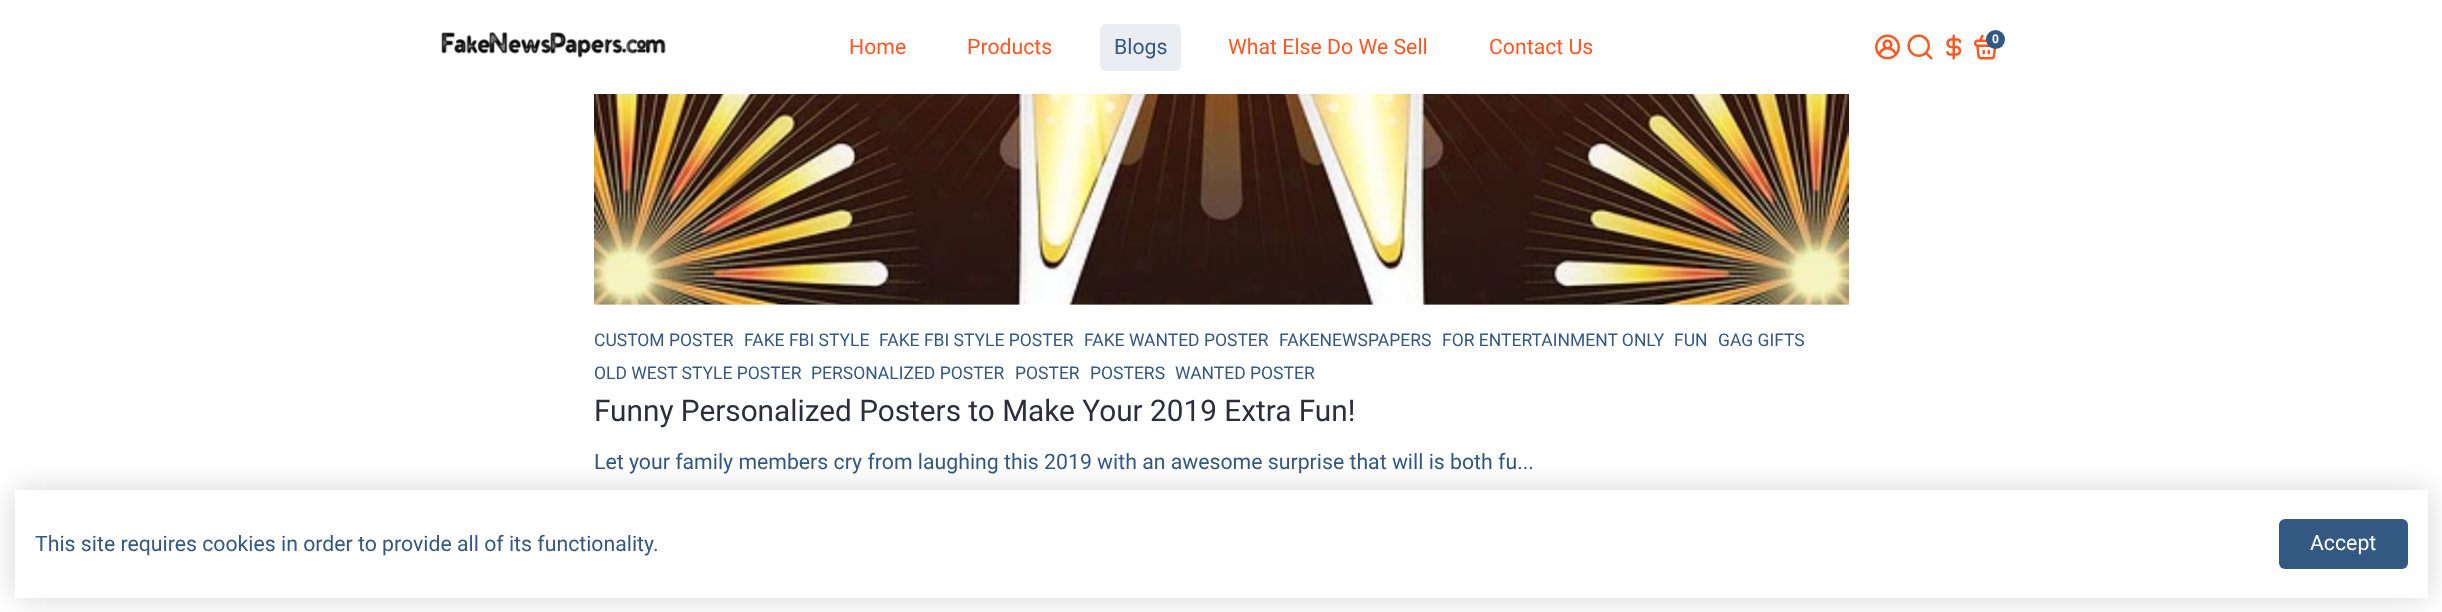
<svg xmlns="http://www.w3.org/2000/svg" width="2442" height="612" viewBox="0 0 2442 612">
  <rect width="100%" height="100%" fill="rgb(255,255,255)"/>
  <image x="441" y="31" width="226" height="28" href="pic1.png"/>
  <g font-family="Roboto" font-size="21.25" fill="rgb(255,87,34)">
    <text x="849" y="54">Home</text>
    <text x="967" y="54">Products</text>
  </g>
  <rect x="1100" y="24" width="81" height="47" rx="6" fill="rgba(51,89,131,0.1)"/>
  <text x="1114" y="54" font-family="Roboto" font-size="21.25" fill="rgb(51,89,131)">Blogs</text>
  <g font-family="Roboto" font-size="21.25" fill="rgb(255,87,34)">
    <text x="1228" y="54">What Else Do We Sell</text>
    <text x="1489" y="54">Contact Us</text>
  </g>
  <image x="1875" y="34" width="25" height="26" href="pic2.png"/>
  <image x="1907" y="34" width="26" height="26" href="pic3.png"/>
  <image x="1946" y="34" width="16" height="26" href="pic4.png"/>
  <image x="1973" y="34" width="23" height="26" href="pic5.png"/>
  <circle cx="1995.5" cy="39.5" r="9.5" fill="rgb(51,89,131)"/>
  <text x="1992" y="43" font-family="Roboto" font-size="12" font-weight="bold" fill="rgb(255,255,255)">0</text>
  <image x="594" y="94" width="1255" height="211" href="pic6.png"/>
  <g font-family="Roboto" font-size="17.5" fill="rgb(51,89,131)">
    <text x="594" y="346">CUSTOM POSTER</text>
    <text x="744" y="346">FAKE FBI STYLE</text>
    <text x="879" y="346">FAKE FBI STYLE POSTER</text>
    <text x="1084" y="346">FAKE WANTED POSTER</text>
    <text x="1279" y="346">FAKENEWSPAPERS</text>
    <text x="1442" y="346">FOR ENTERTAINMENT ONLY</text>
    <text x="1674" y="346">FUN</text>
    <text x="1718" y="346">GAG GIFTS</text>
    <text x="594" y="379">OLD WEST STYLE POSTER</text>
    <text x="811" y="379">PERSONALIZED POSTER</text>
    <text x="1015" y="379">POSTER</text>
    <text x="1090" y="379">POSTERS</text>
    <text x="1175" y="379">WANTED POSTER</text>
  </g>
  <text x="594" y="421" font-family="Roboto" font-size="29.75" fill="rgb(43,47,61)">Funny Personalized Posters to Make Your 2019 Extra Fun!</text>
  <text x="594" y="469" font-family="Roboto" font-size="21.25" fill="rgb(51,89,131)">Let your family members cry from laughing this 2019 with an awesome surprise that will is both fu...</text>
  <rect x="15" y="490" width="2413" height="108" fill="rgba(0,0,0,0.16)" filter="blur(15px)"/>
  <rect x="15" y="490" width="2413" height="108" fill="rgb(255,255,255)"/>
  <text x="35" y="551" font-family="Roboto" font-size="21.25" fill="rgb(51,89,131)">This site requires cookies in order to provide all of its functionality.</text>
  <rect x="2279" y="519" width="129" height="50" rx="6" fill="rgb(51,89,131)"/>
  <text x="2310" y="550" font-family="Roboto" font-size="21.25" fill="rgb(255,255,255)">Accept</text>
</svg>
